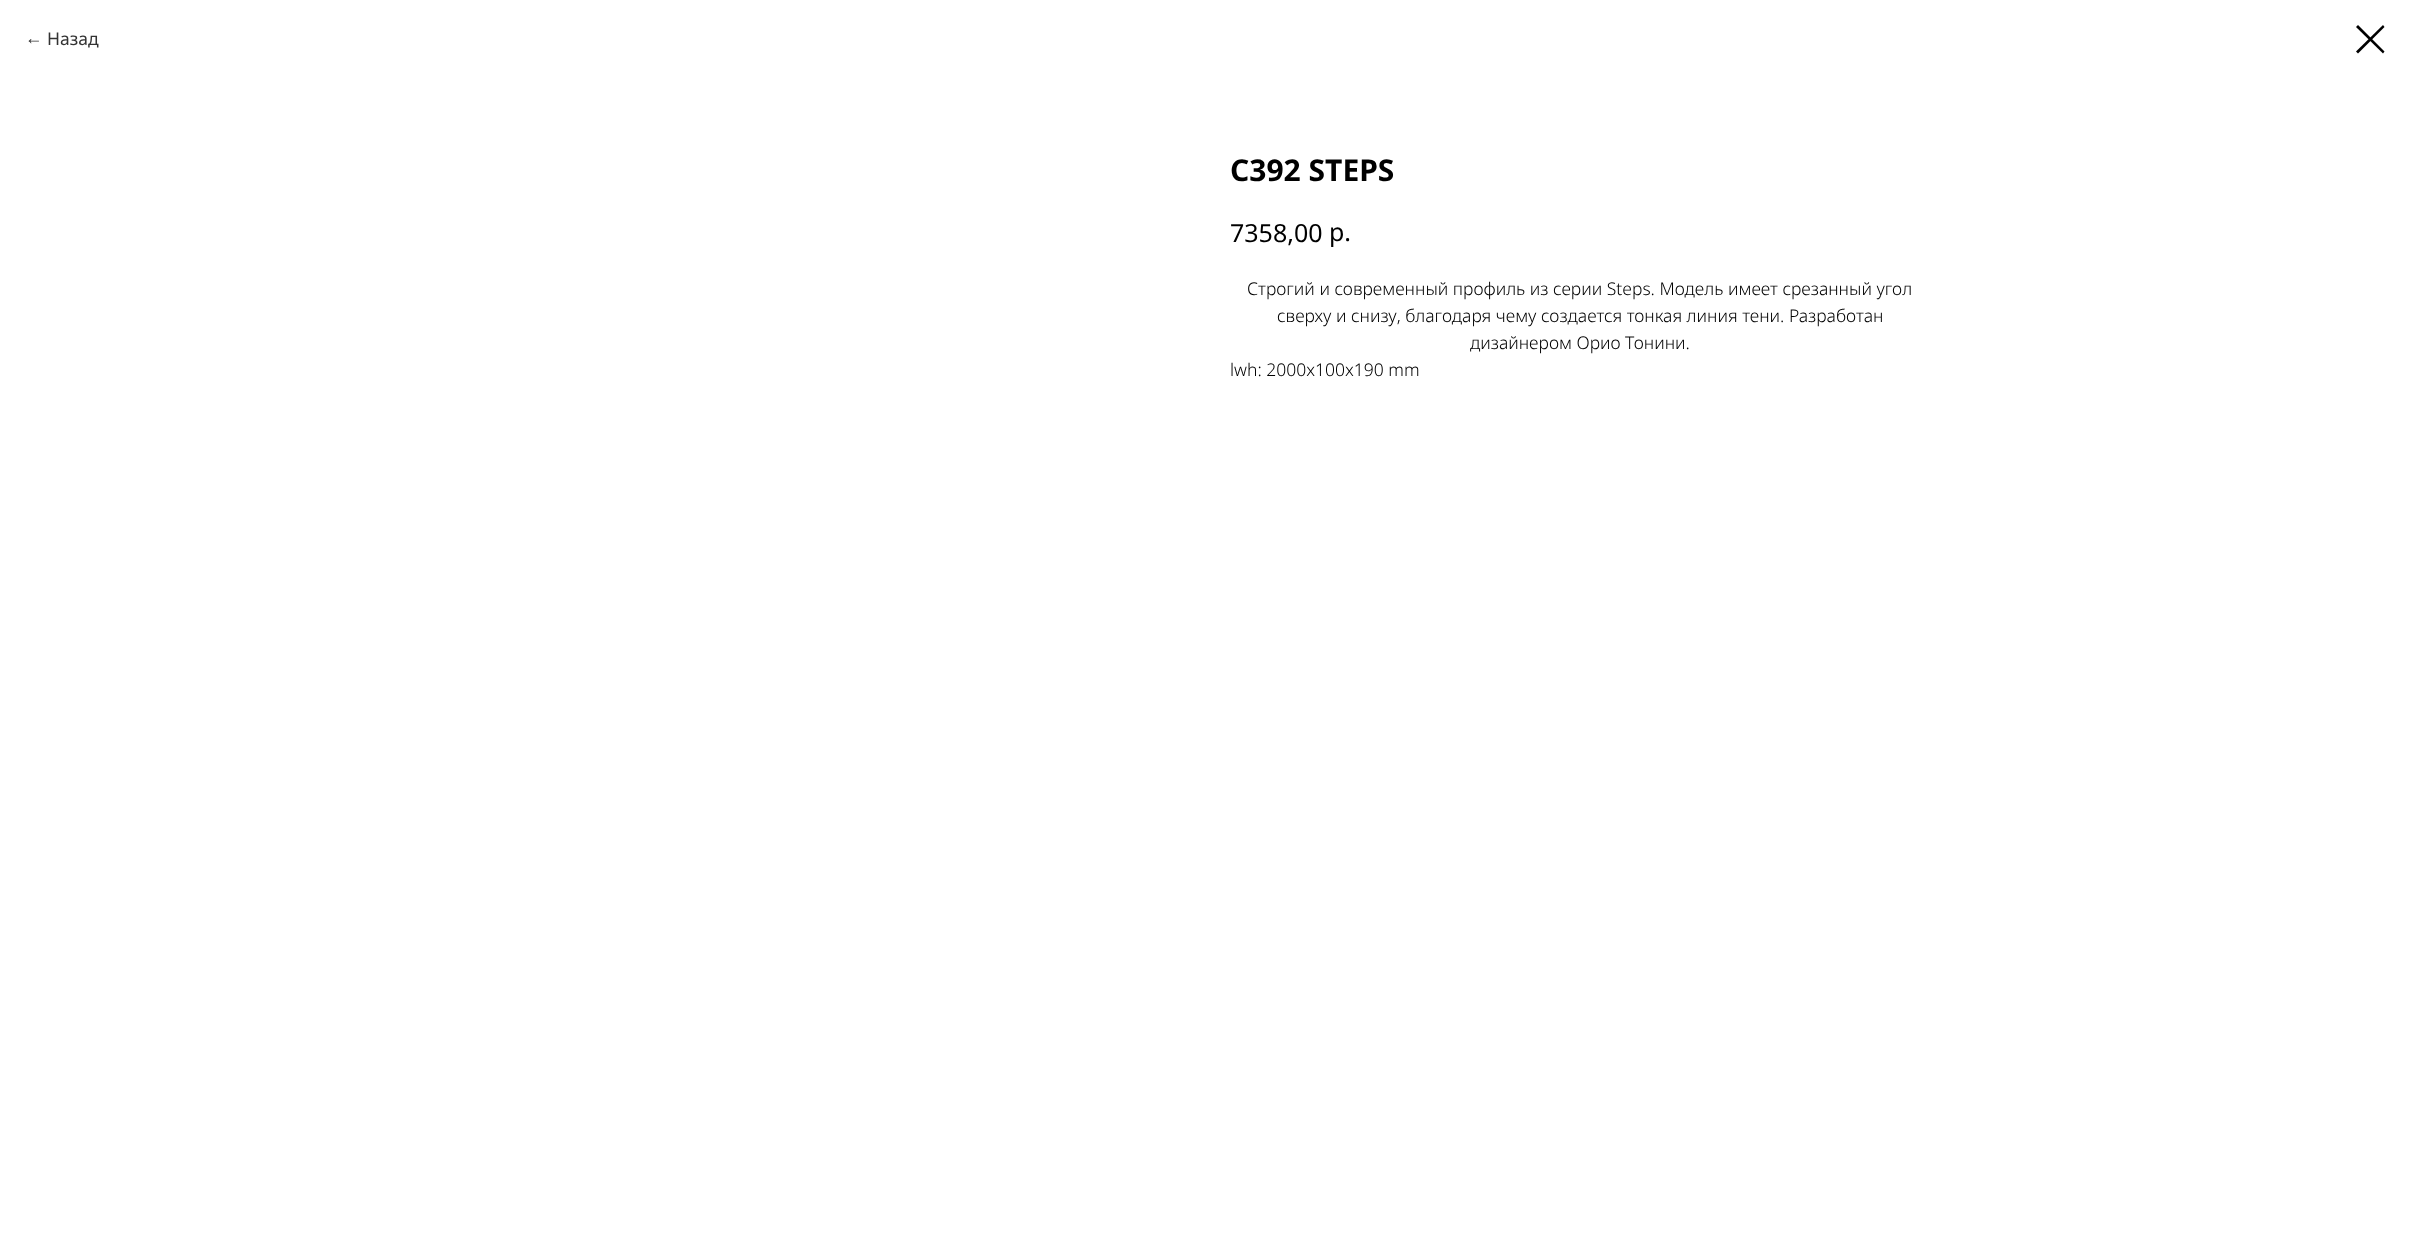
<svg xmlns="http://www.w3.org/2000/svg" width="2409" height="1240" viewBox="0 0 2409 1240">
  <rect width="100%" height="100%" fill="rgb(255,255,255)"/>
  <text x="25" y="44" font-family="Liberation Sans" font-size="17.5" fill="rgb(51,51,51)">←</text>
  <text x="47" y="45" font-family="Noto Sans" font-size="17.5" fill="rgb(51,51,51)">Назад</text>
  <path d="M2356 27L2358 25L2384.5 51.5L2383 53.5Z" fill="rgb(0,0,0)" fill-rule="evenodd"/>
  <path d="M2383 25L2384.5 27L2358 53.5L2356 51.5Z" fill="rgb(0,0,0)" fill-rule="evenodd"/>
  <text x="1230" y="181" font-family="Noto Sans" font-size="30" font-weight="bold" fill="rgb(0,0,0)">C392 STEPS</text>
  <g font-family="Noto Sans" font-size="25" fill="rgb(0,0,0)">
    <text x="1230" y="242">7358,00</text>
    <text x="1329" y="241">р.</text>
  </g>
  <g font-family="Noto Sans" font-size="17.5" font-weight="300" fill="rgb(0,0,0)">
    <text x="1247" y="295">Строгий и современный профиль из серии Steps. Модель имеет срезанный угол</text>
    <text x="1277" y="322">сверху и снизу, благодаря чему создается тонкая линия тени. Разработан</text>
    <text x="1470" y="349">дизайнером Орио Тонини.</text>
    <text x="1230" y="376">lwh: 2000x100x190 mm</text>
  </g>
</svg>
